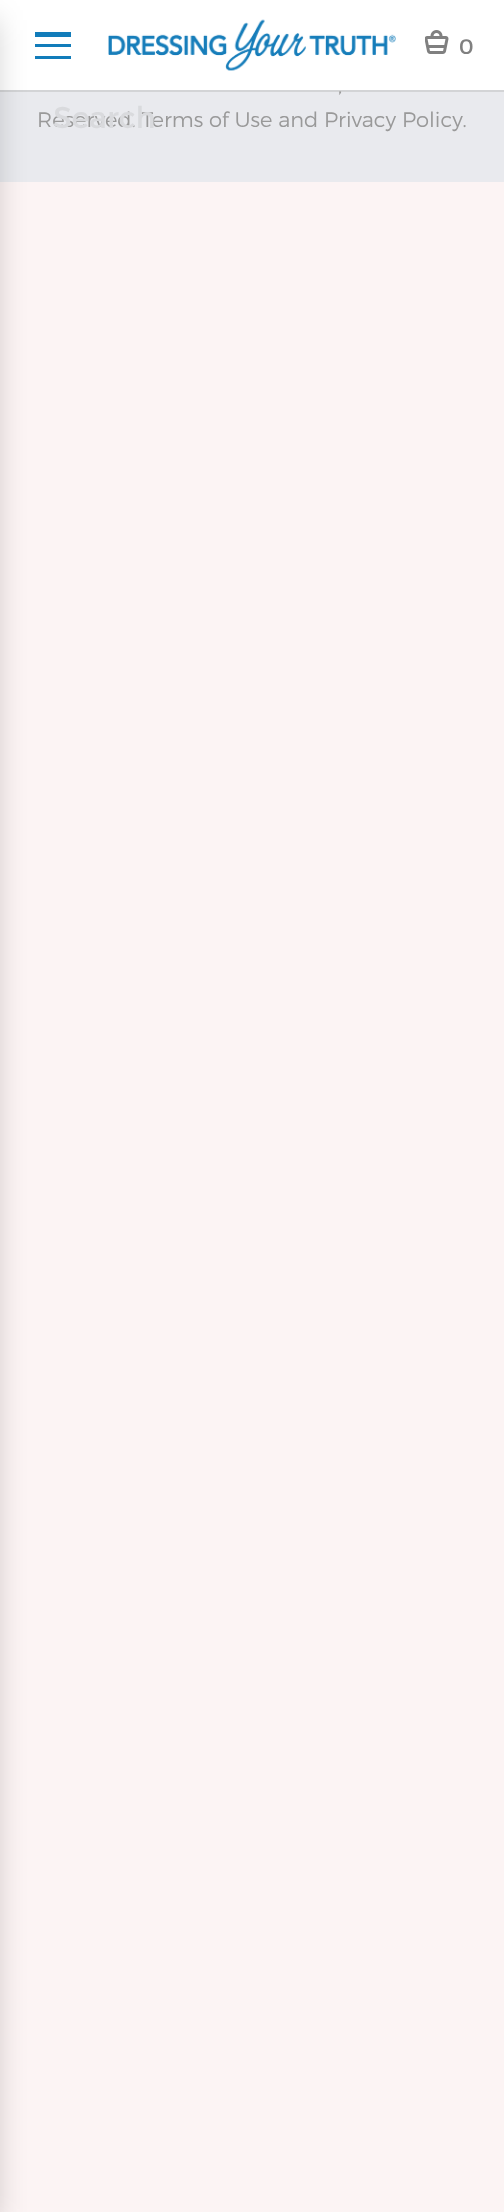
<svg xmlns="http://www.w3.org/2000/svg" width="504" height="2212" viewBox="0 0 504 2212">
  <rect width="100%" height="100%" fill="rgb(252,244,244)"/>
  <rect x="0" y="90" width="504" height="92" fill="rgb(233,234,238)"/>
  <text x="338" y="93" font-family="Montserrat" font-size="21" font-weight="300" fill="rgb(153,153,153)">,</text>
  <rect x="0" y="90" width="504" height="2" fill="rgba(190,190,190,0.5)"/>
  <rect x="0" y="0" width="504" height="90" fill="rgb(255,255,255)"/>
  <rect x="35" y="44" width="36" height="3" fill="rgb(18,124,186)"/>
  <rect x="35" y="32" width="36" height="5" fill="rgb(18,124,186)"/>
  <rect x="35" y="56" width="36" height="3" fill="rgb(18,124,186)"/>
  <rect x="-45" y="20" width="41" height="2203" fill="rgba(0,0,0,0.2)" filter="blur(15px)"/>
  <image x="108" y="19" width="288" height="52" href="pic1.png"/>
  <image x="425" y="30" width="24" height="24" href="pic2.png"/>
  <text x="459" y="54" font-family="Montserrat" font-size="21" fill="rgb(128,128,128)">0</text>
  <text x="37" y="127" font-family="Montserrat" font-size="21" font-weight="300" fill="rgb(153,153,153)">Reserved. Terms of Use and Privacy Policy.</text>
  <text x="53" y="128" font-family="Montserrat" font-size="30" fill="rgb(217,218,221)">Search</text>
</svg>
